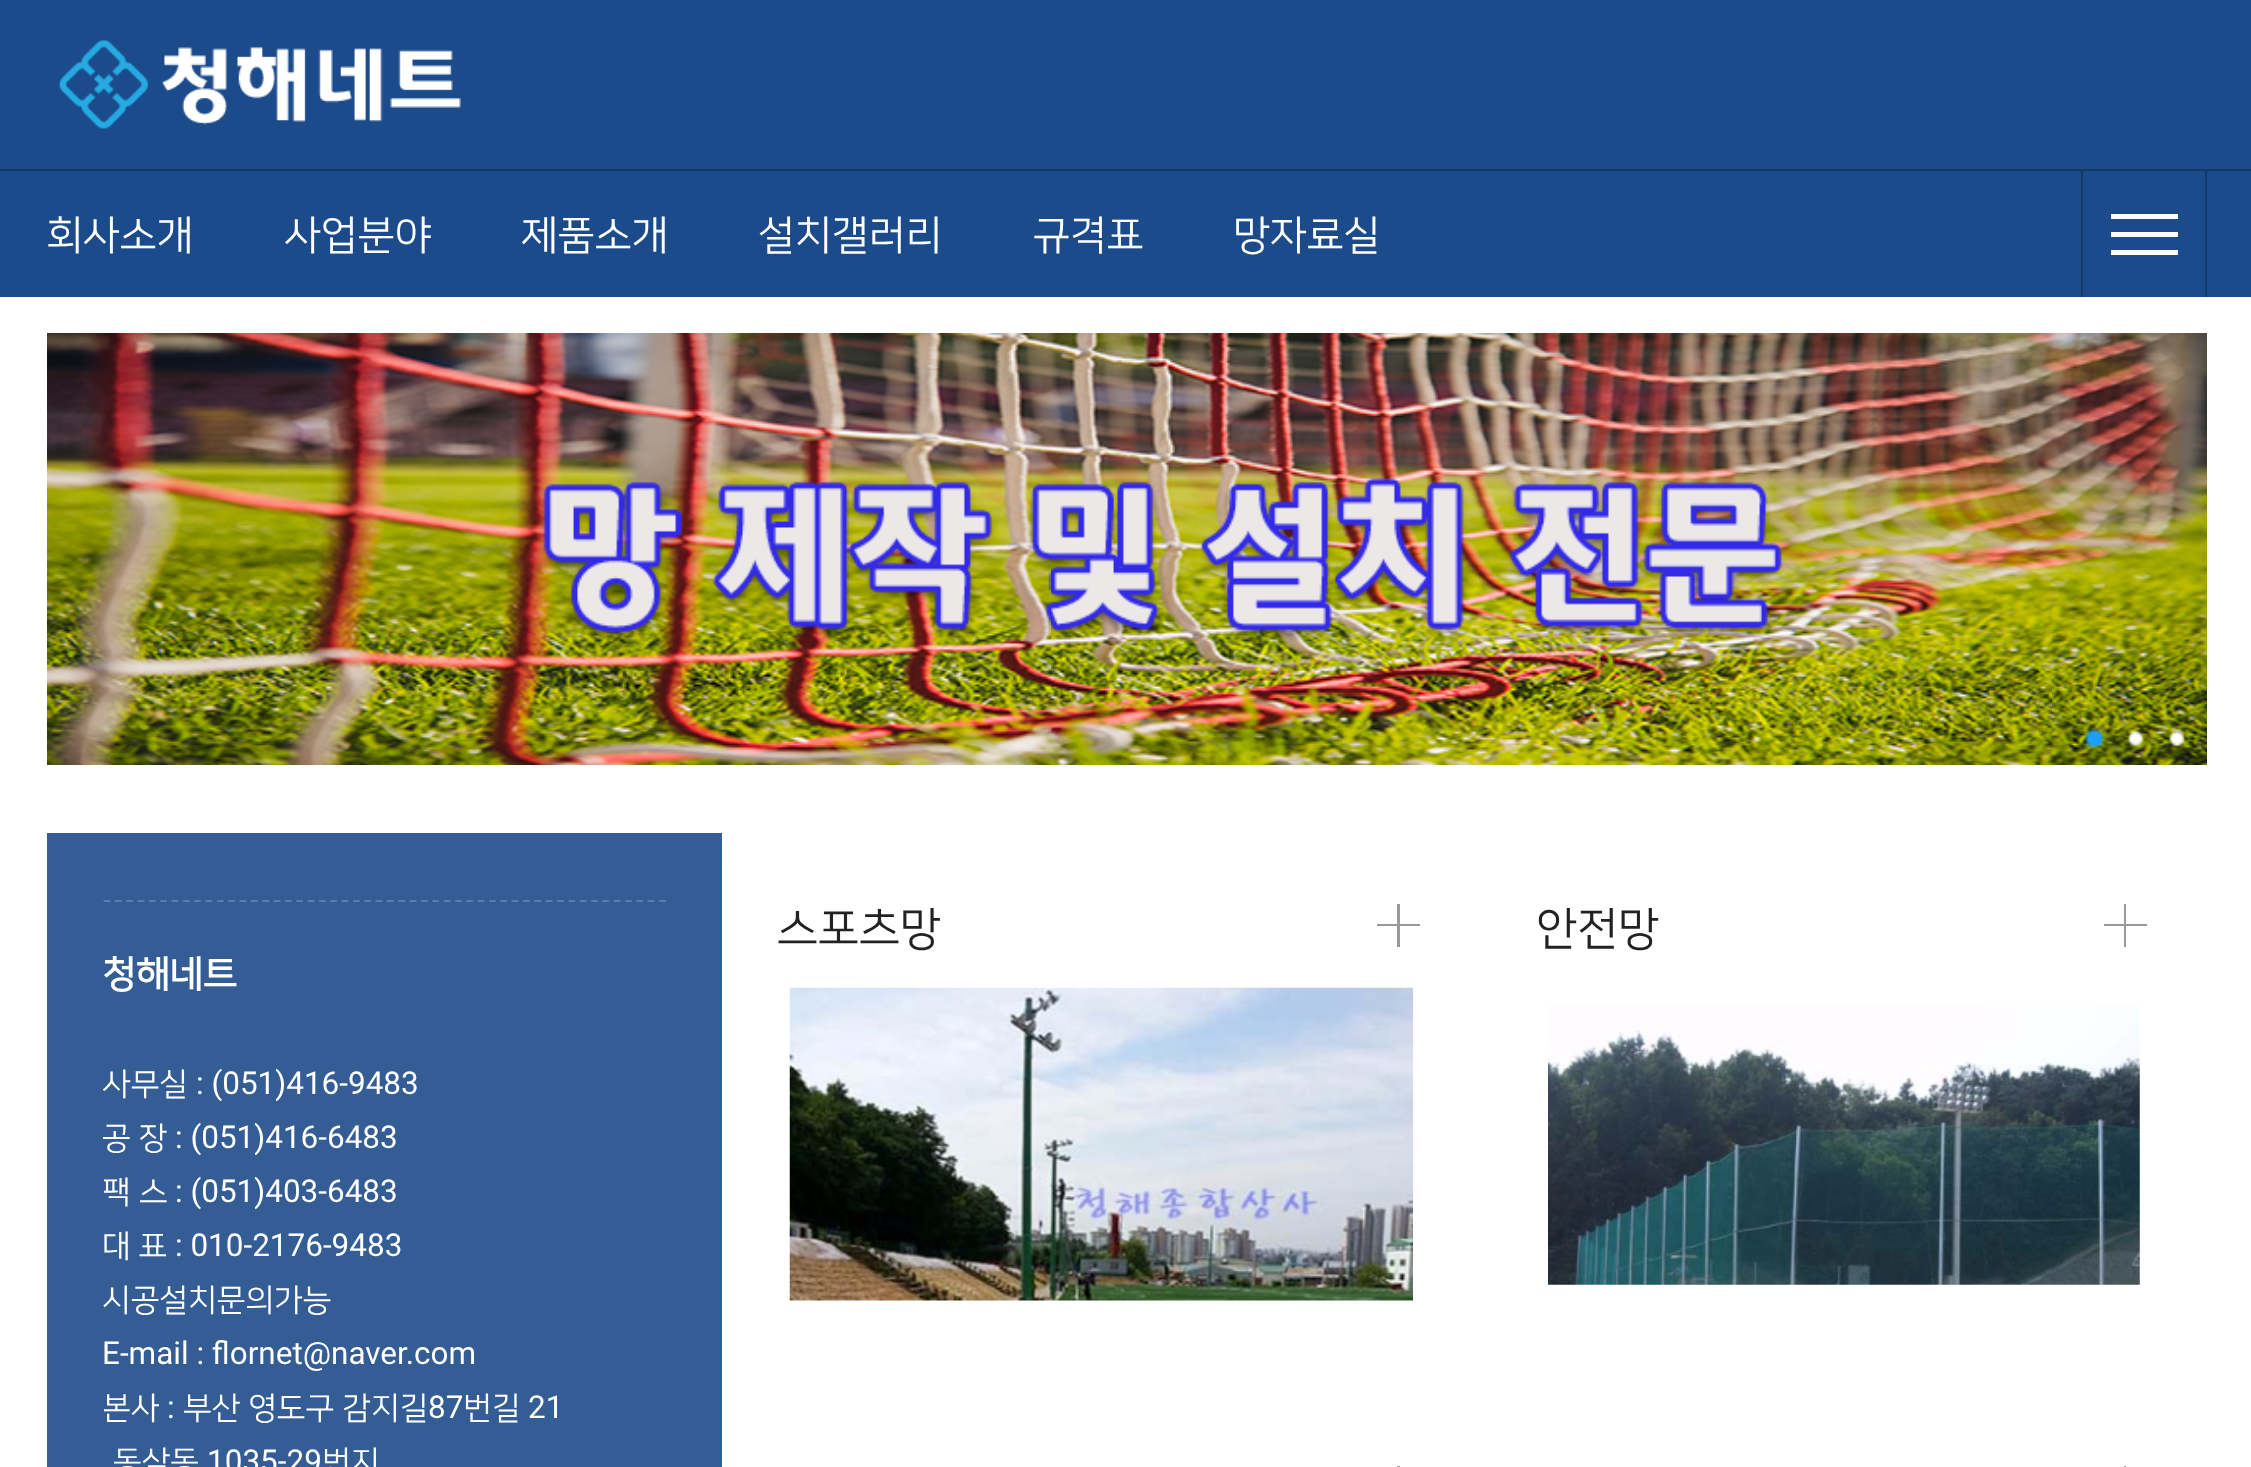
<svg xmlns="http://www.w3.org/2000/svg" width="2251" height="1467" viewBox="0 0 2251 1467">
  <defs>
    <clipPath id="clip1"><rect x="104" y="902" width="562" height="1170"/></clipPath>
  </defs>
  <rect width="100%" height="100%" fill="rgb(255,255,255)"/>
  <rect x="0" y="0" width="2251" height="297" fill="rgb(28,75,140)"/>
  <rect x="0" y="169" width="2251" height="2" fill="rgb(21,56,105)"/>
  <image x="59" y="40" width="402" height="89" href="pic1.png"/>
  <g font-family="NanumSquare" font-size="40.5" fill="rgb(255,255,255)">
    <text x="46" y="248">회사소개</text>
    <text x="284" y="248">사업분야</text>
    <text x="521" y="248">제품소개</text>
    <text x="758" y="248">설치갤러리</text>
    <text x="1033" y="248">규격표</text>
    <text x="1233" y="248">망자료실</text>
  </g>
  <rect x="2205" y="171" width="2" height="126" fill="rgb(21,56,105)"/>
  <rect x="2081" y="171" width="2" height="126" fill="rgb(21,56,105)"/>
  <rect x="2111" y="214" width="67" height="5" fill="rgb(255,255,255)"/>
  <rect x="2111" y="232" width="67" height="5" fill="rgb(255,255,255)"/>
  <rect x="2111" y="250" width="67" height="5" fill="rgb(255,255,255)"/>
  <image x="47" y="333" width="2160" height="432" href="pic2.png"/>
  <image x="2084" y="728" width="21" height="21" href="pic3.png"/>
  <image x="2127" y="730" width="17" height="17" href="pic4.png"/>
  <image x="2169" y="730" width="16" height="17" href="pic5.png"/>
  <text x="777" y="943" font-family="NanumSquare" font-size="45" fill="rgb(34,34,34)">스포츠망</text>
  <path d="M1420 924H1400V904H1397V924H1377V926H1397V947H1400V926H1420Z" fill="rgb(153,153,153)"/>
  <image x="789" y="987" width="624" height="314" href="pic6.png"/>
  <text x="1536" y="943" font-family="NanumSquare" font-size="45" fill="rgb(34,34,34)">안전망</text>
  <path d="M2147 924H2126V904H2124V924H2104V926H2124V947H2126V926H2147Z" fill="rgb(153,153,153)"/>
  <image x="1548" y="1006" width="592" height="279" href="pic7.png"/>
  <rect x="47" y="833" width="675" height="634" fill="rgb(52,93,150)"/>
  <path d="M103.5 901H666" fill="none" stroke="rgb(93,125,171)" stroke-width="2.2" stroke-dasharray="6.75 4.59"/>
  <text x="102" y="986" font-family="NanumSquare" font-size="37" font-weight="bold" fill="rgb(255,255,255)">청해네트</text>
  <text x="102" y="1094" font-family="NanumSquare" font-size="31.5" fill="rgb(255,255,255)">사무실</text>
  <text x="196" y="1094" font-family="Roboto" font-size="31.5" fill="rgb(255,255,255)">: (051)416-9483</text>
  <text x="102" y="1148" font-family="NanumSquare" font-size="31.5" fill="rgb(255,255,255)">공 장</text>
  <text x="175" y="1148" font-family="Roboto" font-size="31.5" fill="rgb(255,255,255)">: (051)416-6483</text>
  <g clip-path="url(#clip1)">
    <text x="102" y="1202" font-family="NanumSquare" font-size="31.5" fill="rgb(255,255,255)">팩</text>
  </g>
  <text x="139" y="1202" font-family="NanumSquare" font-size="31.5" fill="rgb(255,255,255)">스</text>
  <text x="175" y="1202" font-family="Roboto" font-size="31.5" fill="rgb(255,255,255)">: (051)403-6483</text>
  <text x="102" y="1256" font-family="NanumSquare" font-size="31.5" fill="rgb(255,255,255)">대 표</text>
  <text x="175" y="1256" font-family="Roboto" font-size="31.5" fill="rgb(255,255,255)">: 010-2176-9483</text>
  <text x="102" y="1310" font-family="NanumSquare" font-size="31.5" fill="rgb(255,255,255)">시공설치문의가능</text>
  <text x="102" y="1364" font-family="Roboto" font-size="31.5" fill="rgb(255,255,255)">E-mail : flornet@naver.com</text>
  <g clip-path="url(#clip1)">
    <text x="102" y="1418" font-family="NanumSquare" font-size="31.5" fill="rgb(255,255,255)">본사</text>
  </g>
  <text x="167" y="1418" font-family="Roboto" font-size="31.5" fill="rgb(255,255,255)">:</text>
  <text x="183" y="1418" font-family="NanumSquare" font-size="31.5" fill="rgb(255,255,255)">부산 영도구 감지길</text>
  <text x="428" y="1418" font-family="Roboto" font-size="31.5" fill="rgb(255,255,255)">87</text>
  <text x="463" y="1418" font-family="NanumSquare" font-size="31.5" fill="rgb(255,255,255)">번길</text>
  <text x="528" y="1418" font-family="Roboto" font-size="31.5" fill="rgb(255,255,255)">21</text>
  <text x="113" y="1472" font-family="NanumSquare" font-size="31.5" fill="rgb(255,255,255)">동삼동</text>
  <text x="207" y="1472" font-family="Roboto" font-size="31.5" fill="rgb(255,255,255)">1035-29</text>
  <text x="322" y="1472" font-family="NanumSquare" font-size="31.5" fill="rgb(255,255,255)">번지</text>
  <path d="M1420 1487H1400V1466H1397V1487H1377V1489H1397V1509H1400V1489H1420Z" fill="rgb(153,153,153)"/>
  <path d="M2147 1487H2126V1466H2124V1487H2104V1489H2124V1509H2126V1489H2147Z" fill="rgb(153,153,153)"/>
</svg>
